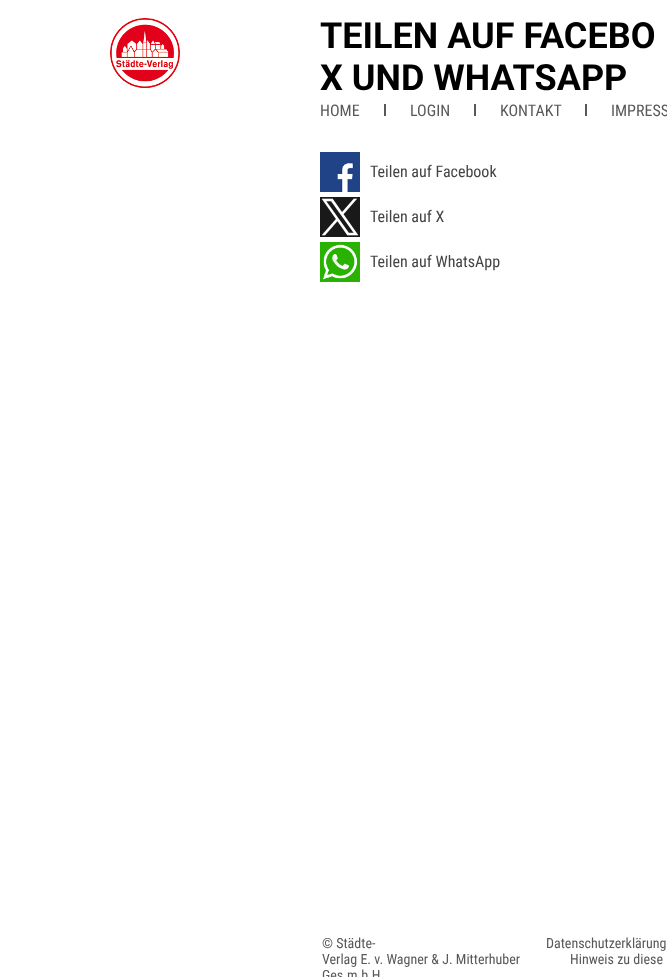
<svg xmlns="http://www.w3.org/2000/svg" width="667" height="977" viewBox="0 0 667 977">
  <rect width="100%" height="100%" fill="rgb(255,255,255)"/>
  <image x="110" y="18" width="70" height="70" href="pic1.png"/>
  <g font-family="Roboto" font-size="36" font-weight="bold" fill="rgb(0,0,0)">
    <text>
      <tspan x="320" y="48">TEILEN AUF FACEBO</tspan>
      <tspan x="320" y="90">X UND WHATSAPP</tspan>
    </text>
  </g>
  <text x="320" y="116" font-family="Roboto Condensed" font-size="16" fill="rgb(88,88,90)">HOME</text>
  <rect x="384" y="104" width="2" height="12" fill="rgb(88,88,90)"/>
  <text x="410" y="116" font-family="Roboto Condensed" font-size="16" fill="rgb(88,88,90)">LOGIN</text>
  <rect x="474" y="104" width="2" height="12" fill="rgb(88,88,90)"/>
  <text x="500" y="116" font-family="Roboto Condensed" font-size="16" fill="rgb(88,88,90)">KONTAKT</text>
  <rect x="585" y="104" width="2" height="12" fill="rgb(88,88,90)"/>
  <text x="611" y="116" font-family="Roboto Condensed" font-size="16" fill="rgb(88,88,90)">IMPRESS</text>
  <image x="320" y="152" width="40" height="40" href="pic2.png"/>
  <text x="370" y="177" font-family="Roboto Condensed" font-size="16" fill="rgb(68,68,68)">Teilen auf Facebook</text>
  <image x="320" y="197" width="40" height="40" href="pic3.png"/>
  <text x="370" y="222" font-family="Roboto Condensed" font-size="16" fill="rgb(68,68,68)">Teilen auf X</text>
  <image x="320" y="242" width="40" height="40" href="pic4.png"/>
  <text x="370" y="267" font-family="Roboto Condensed" font-size="16" fill="rgb(68,68,68)">Teilen auf WhatsApp</text>
  <g font-family="Roboto Condensed" font-size="14" fill="rgb(88,88,90)">
    <text>
      <tspan x="322" y="948">© Städte-</tspan>
      <tspan x="322" y="964">Verlag E. v. Wagner &amp; J. Mitterhuber</tspan>
      <tspan x="322" y="980">Ges.m.b.H</tspan>
    </text>
    <text x="546" y="948">Datenschutzerklärung</text>
    <text x="570" y="964">Hinweis zu diese</text>
  </g>
</svg>
